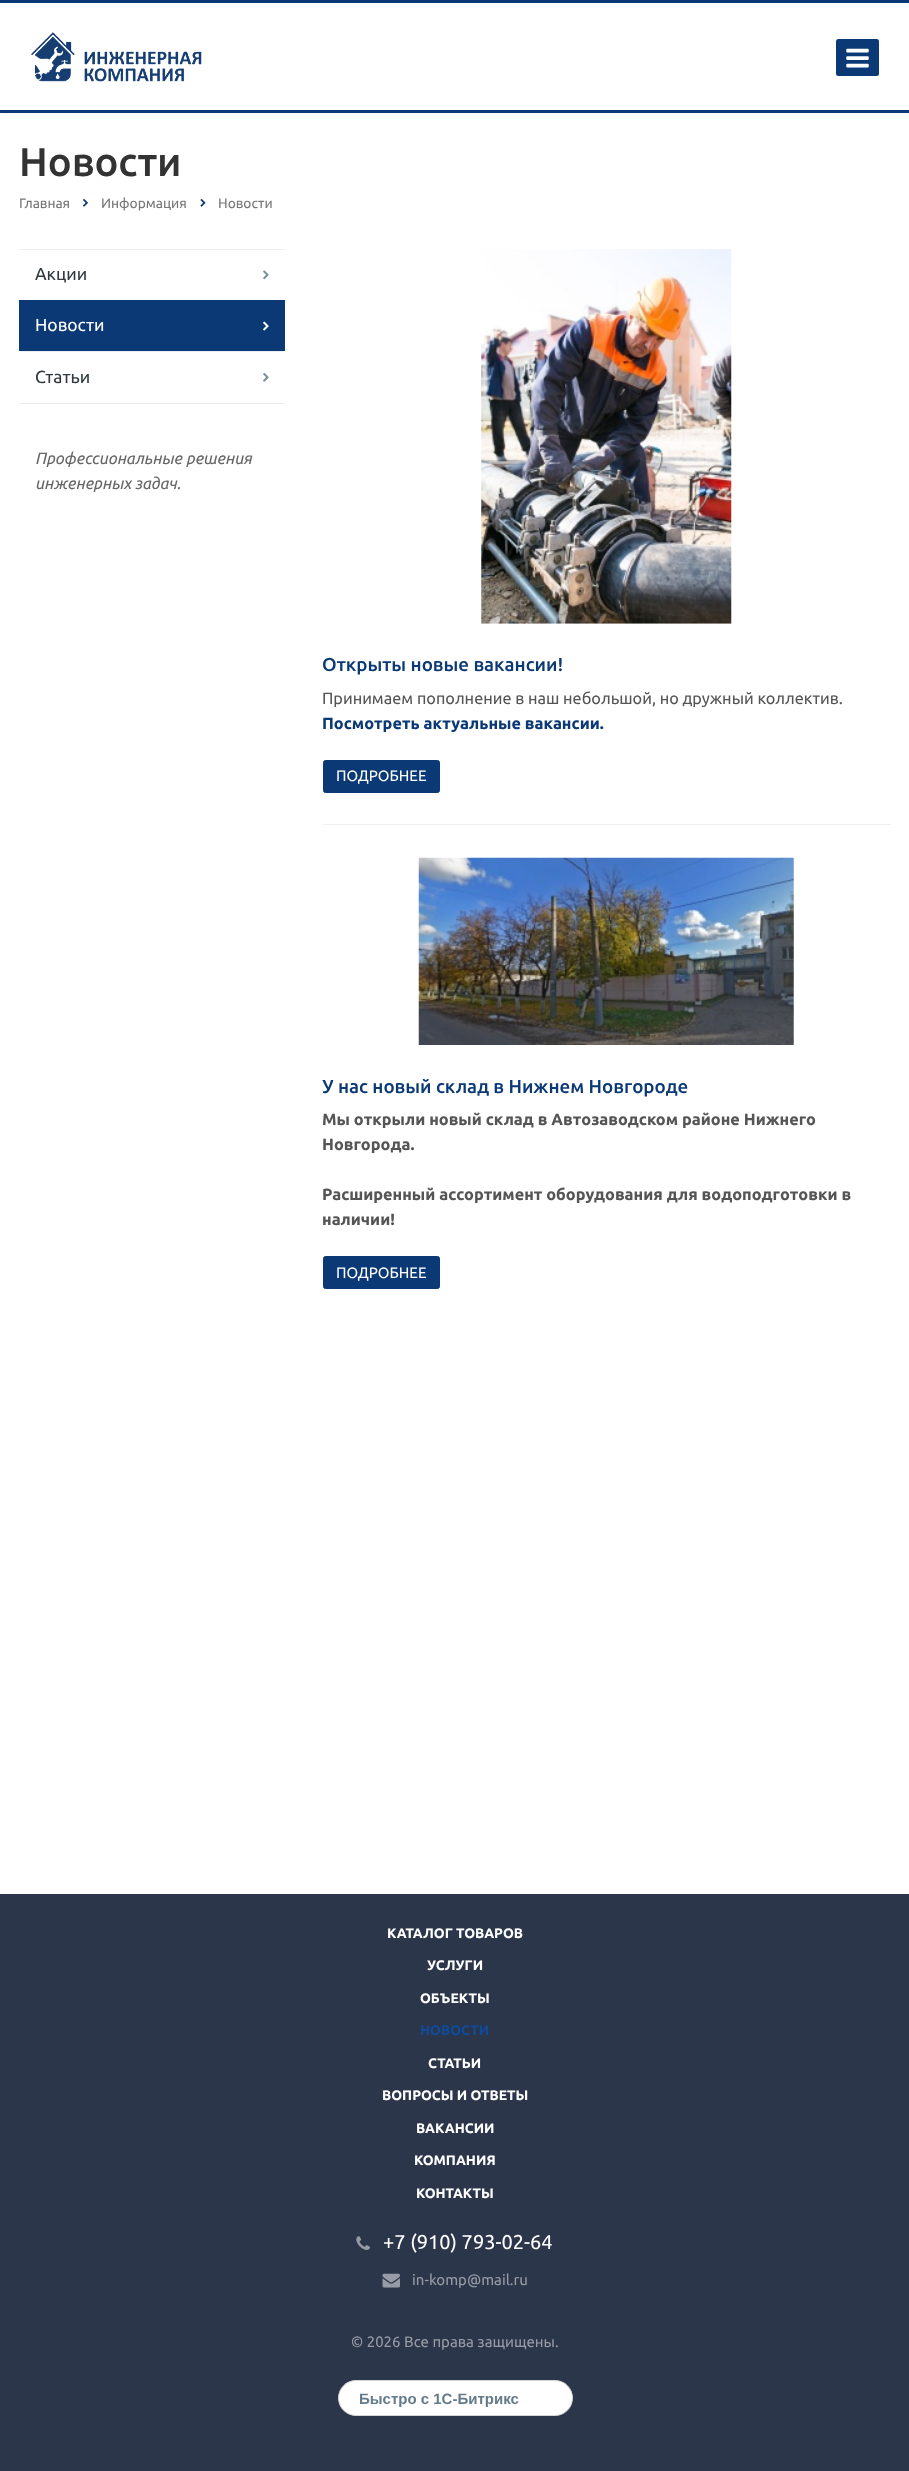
<svg xmlns="http://www.w3.org/2000/svg" width="909" height="2471" viewBox="0 0 909 2471">
  <defs>
    <clipPath id="clip1"><rect x="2" y="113" width="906" height="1"/></clipPath>
  </defs>
  <rect width="100%" height="100%" fill="rgb(255,255,255)"/>
  <g clip-path="url(#clip1)">
    <rect x="0" y="1" width="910" height="110" fill="rgba(0,0,0,0.14)" filter="blur(3px)"/>
  </g>
  <rect x="0" y="0" width="909" height="3" fill="rgb(11,57,117)"/>
  <image x="31" y="32" width="171" height="50" href="pic1.png"/>
  <rect x="836" y="39" width="43" height="37" rx="2.5" fill="rgb(11,57,117)"/>
  <image x="846" y="48" width="23" height="20" href="pic2.png"/>
  <rect x="0" y="110" width="909" height="3" fill="rgb(11,57,117)"/>
  <text x="19" y="176" font-family="Ubuntu" font-size="40" font-weight="500" fill="rgb(51,51,51)">Новости</text>
  <text x="19" y="208" font-family="Ubuntu" font-size="13.75" fill="rgb(119,119,119)">Главная</text>
  <image x="83" y="198" width="5" height="9" href="pic3.png"/>
  <text x="101" y="208" font-family="Ubuntu" font-size="13.75" fill="rgb(119,119,119)">Информация</text>
  <image x="200" y="198" width="6" height="9" href="pic4.png"/>
  <text x="218" y="208" font-family="Ubuntu" font-size="13.75" fill="rgb(119,119,119)">Новости</text>
  <rect x="19" y="403" width="266" height="1" fill="rgb(235,238,241)"/>
  <rect x="19" y="249" width="266" height="1" fill="rgb(235,238,241)"/>
  <text x="35" y="280" font-family="Ubuntu" font-size="17.5" fill="rgb(47,56,61)">Акции</text>
  <image x="263" y="270" width="6" height="10" href="pic5.png"/>
  <rect x="19" y="300" width="266" height="51" fill="rgb(11,57,117)"/>
  <text x="35" y="331" font-family="Ubuntu" font-size="17.5" fill="rgb(255,255,255)">Новости</text>
  <image x="263" y="321" width="6" height="10" href="pic6.png"/>
  <rect x="19" y="351" width="266" height="1" fill="rgb(235,238,241)"/>
  <text x="35" y="383" font-family="Ubuntu" font-size="17.5" fill="rgb(47,56,61)">Статьи</text>
  <image x="263" y="372" width="6" height="10" href="pic7.png"/>
  <g font-family="Ubuntu" font-size="16.25" font-style="italic" fill="rgb(102,102,102)">
    <text>
      <tspan x="35" y="464">Профессиональные решения</tspan>
      <tspan x="35" y="489">инженерных задач.</tspan>
    </text>
  </g>
  <image x="481" y="249" width="251" height="375" href="pic8.png"/>
  <text x="322" y="671" font-family="Ubuntu" font-size="18.75" font-weight="500" fill="rgb(11,57,117)">Открыты новые вакансии!</text>
  <text x="322" y="704" font-family="Ubuntu" font-size="16.25" fill="rgb(85,85,85)">Принимаем пополнение в наш небольшой, но дружный коллектив.</text>
  <text x="322" y="729" font-family="Ubuntu" font-size="16.25" font-weight="bold" fill="rgb(11,57,117)">Посмотреть актуальные вакансии.</text>
  <rect x="323.5" y="760.5" width="116" height="32" rx="2" fill="rgb(11,57,117)" stroke="rgb(11,57,117)"/>
  <text x="336" y="781" font-family="Ubuntu" font-size="15" fill="rgb(255,255,255)">ПОДРОБНЕЕ</text>
  <rect x="323" y="824" width="568" height="1" fill="rgb(239,239,239)"/>
  <image x="418" y="857" width="376" height="188" href="pic9.png"/>
  <text x="322" y="1093" font-family="Ubuntu" font-size="18.75" font-weight="500" fill="rgb(11,57,117)">У нас новый склад в Нижнем Новгороде</text>
  <g font-family="Ubuntu" font-size="16.25" font-weight="bold" fill="rgb(85,85,85)">
    <text>
      <tspan x="322" y="1125">Мы открыли новый склад в Автозаводском районе Нижнего</tspan>
      <tspan x="322" y="1150">Новгорода.</tspan>
    </text>
    <text>
      <tspan x="322" y="1200">Расширенный ассортимент оборудования для водоподготовки в</tspan>
      <tspan x="322" y="1225">наличии!</tspan>
    </text>
  </g>
  <rect x="323.5" y="1256.5" width="116" height="32" rx="2" fill="rgb(11,57,117)" stroke="rgb(11,57,117)"/>
  <text x="336" y="1278" font-family="Ubuntu" font-size="15" fill="rgb(255,255,255)">ПОДРОБНЕЕ</text>
  <rect x="0" y="1894" width="909" height="577" fill="rgb(44,54,74)"/>
  <g font-family="Ubuntu" font-size="13.75" font-weight="bold" fill="rgb(255,255,255)">
    <text x="387" y="1938">КАТАЛОГ ТОВАРОВ</text>
    <text x="427" y="1970">УСЛУГИ</text>
    <text x="420" y="2003">ОБЪЕКТЫ</text>
  </g>
  <text x="420" y="2035" font-family="Ubuntu" font-size="13.75" font-weight="bold" fill="rgb(15,75,154)">НОВОСТИ</text>
  <g font-family="Ubuntu" font-size="13.75" font-weight="bold" fill="rgb(255,255,255)">
    <text x="428" y="2068">СТАТЬИ</text>
    <text x="382" y="2100">ВОПРОСЫ И ОТВЕТЫ</text>
    <text x="416" y="2133">ВАКАНСИИ</text>
    <text x="414" y="2165">КОМПАНИЯ</text>
    <text x="416" y="2198">КОНТАКТЫ</text>
  </g>
  <image x="356" y="2236" width="14" height="14" href="pic10.png"/>
  <text x="383" y="2249" font-family="Ubuntu" font-size="20" fill="rgb(255,255,255)">+7 (910) 793-02-64</text>
  <image x="382" y="2273" width="18" height="15" href="pic11.png"/>
  <g font-family="Ubuntu" font-size="15" fill="rgb(150,155,165)">
    <text x="412" y="2285">in-komp@mail.ru</text>
    <text x="351" y="2347">© 2026 Все права защищены.</text>
  </g>
  <rect x="338.5" y="2380.5" width="234" height="35" rx="17.5" fill="rgb(255,255,255)" stroke="rgb(212,212,212)"/>
  <text x="359" y="2404" font-family="Liberation Sans" font-size="15" font-weight="bold" fill="rgb(101,123,137)">Быстро с 1С-Битрикс</text>
</svg>
